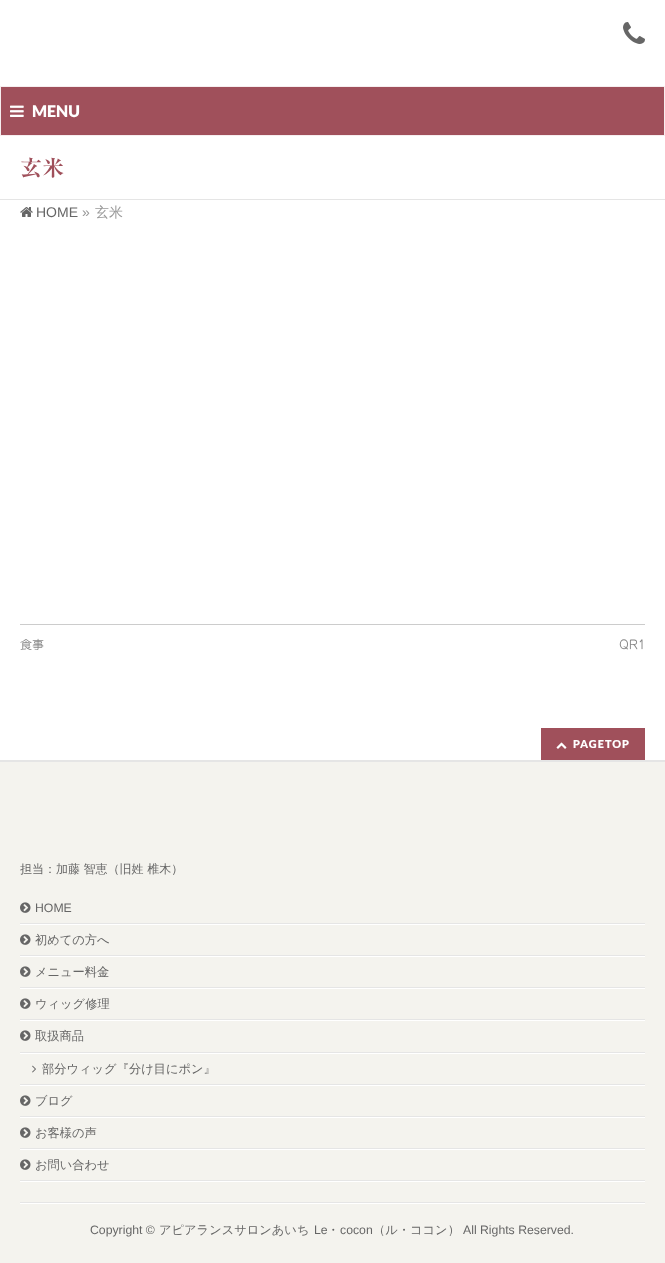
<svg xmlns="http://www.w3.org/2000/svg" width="665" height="1263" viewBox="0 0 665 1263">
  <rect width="100%" height="100%" fill="rgb(255,255,255)"/>
  <image x="623" y="22" width="22" height="22" href="pic1.png"/>
  <rect x="0.5" y="86.5" width="664" height="49" fill="rgb(160,80,91)" stroke="rgb(246,238,239)"/>
  <image x="10" y="105" width="14" height="12" href="pic2.png"/>
  <text x="32" y="117" font-family="Lato" font-size="16" font-weight="900" fill="rgb(255,255,255)">MENU</text>
  <rect x="0" y="199" width="665" height="1" fill="rgb(229,229,229)"/>
  <text x="20" y="176" font-family="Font" font-size="22" font-weight="500" fill="rgb(160,80,91)">玄米</text>
  <image x="20" y="207" width="13" height="10" href="pic3.png"/>
  <text x="36" y="217" font-family="Liberation Sans" font-size="14" fill="rgb(102,102,102)">HOME</text>
  <text x="82" y="217" font-family="Liberation Sans" font-size="14" fill="rgb(153,153,153)">»</text>
  <text x="95" y="217" font-family="WenQuanYi Zen Hei" font-size="14" font-weight="500" fill="rgb(153,153,153)">玄米</text>
  <rect x="20" y="624" width="625" height="1" fill="rgb(204,204,204)"/>
  <g font-family="Font" font-size="12" fill="rgb(136,136,136)">
    <text x="20" y="649">食事</text>
    <text x="619" y="649">QR1</text>
  </g>
  <rect x="541" y="728" width="104" height="32" fill="rgb(160,80,91)"/>
  <image x="556" y="742" width="11" height="7" href="pic4.png"/>
  <text x="573" y="748" font-family="Lato" font-size="11" font-weight="900" letter-spacing="1" fill="rgb(255,255,255)">PAGETOP</text>
  <rect x="0" y="760" width="665" height="2" fill="rgb(229,229,229)"/>
  <rect x="0" y="762" width="665" height="501" fill="rgb(244,243,238)"/>
  <text x="20" y="873" font-family="WenQuanYi Zen Hei" font-size="12" font-weight="500" fill="rgb(102,102,102)">担当：加藤 智恵（旧姓 椎木）</text>
  <rect x="20" y="924" width="625" height="1" fill="rgb(255,255,255)"/>
  <rect x="20" y="923" width="625" height="1" fill="rgb(229,229,229)"/>
  <image x="20" y="902" width="11" height="11" href="pic5.png"/>
  <text x="35" y="912" font-family="Liberation Sans" font-size="12.25" fill="rgb(102,102,102)">HOME</text>
  <rect x="20" y="956" width="625" height="1" fill="rgb(255,255,255)"/>
  <rect x="20" y="955" width="625" height="1" fill="rgb(229,229,229)"/>
  <image x="20" y="934" width="11" height="11" href="pic5.png"/>
  <text x="35" y="944" font-family="WenQuanYi Zen Hei" font-size="12.25" font-weight="500" fill="rgb(102,102,102)">初めての方へ</text>
  <rect x="20" y="988" width="625" height="1" fill="rgb(255,255,255)"/>
  <rect x="20" y="987" width="625" height="1" fill="rgb(229,229,229)"/>
  <image x="20" y="966" width="11" height="11" href="pic5.png"/>
  <text x="35" y="976" font-family="WenQuanYi Zen Hei" font-size="12.25" font-weight="500" fill="rgb(102,102,102)">メニュー料金</text>
  <rect x="20" y="1020" width="625" height="1" fill="rgb(255,255,255)"/>
  <rect x="20" y="1019" width="625" height="1" fill="rgb(229,229,229)"/>
  <image x="20" y="998" width="11" height="11" href="pic5.png"/>
  <text x="35" y="1008" font-family="WenQuanYi Zen Hei" font-size="12.25" font-weight="500" fill="rgb(102,102,102)">ウィッグ修理</text>
  <rect x="20" y="1053" width="625" height="1" fill="rgb(255,255,255)"/>
  <rect x="20" y="1052" width="625" height="1" fill="rgb(229,229,229)"/>
  <image x="20" y="1030" width="11" height="11" href="pic5.png"/>
  <text x="35" y="1040" font-family="WenQuanYi Zen Hei" font-size="12.25" font-weight="500" fill="rgb(102,102,102)">取扱商品</text>
  <rect x="20" y="1085" width="625" height="1" fill="rgb(255,255,255)"/>
  <rect x="20" y="1084" width="625" height="1" fill="rgb(229,229,229)"/>
  <image x="32" y="1065" width="4" height="8" href="pic6.png"/>
  <text x="42" y="1073" font-family="WenQuanYi Zen Hei" font-size="12.25" font-weight="500" fill="rgb(102,102,102)">部分ウィッグ『分け目にポン』</text>
  <rect x="20" y="1117" width="625" height="1" fill="rgb(255,255,255)"/>
  <rect x="20" y="1116" width="625" height="1" fill="rgb(229,229,229)"/>
  <image x="20" y="1095" width="11" height="11" href="pic5.png"/>
  <text x="35" y="1105" font-family="WenQuanYi Zen Hei" font-size="12.25" font-weight="500" fill="rgb(102,102,102)">ブログ</text>
  <rect x="20" y="1149" width="625" height="1" fill="rgb(255,255,255)"/>
  <rect x="20" y="1148" width="625" height="1" fill="rgb(229,229,229)"/>
  <image x="20" y="1127" width="11" height="11" href="pic5.png"/>
  <text x="35" y="1137" font-family="WenQuanYi Zen Hei" font-size="12.25" font-weight="500" fill="rgb(102,102,102)">お客様の声</text>
  <rect x="20" y="1181" width="625" height="1" fill="rgb(255,255,255)"/>
  <rect x="20" y="1180" width="625" height="1" fill="rgb(229,229,229)"/>
  <image x="20" y="1159" width="11" height="11" href="pic5.png"/>
  <text x="35" y="1169" font-family="WenQuanYi Zen Hei" font-size="12.25" font-weight="500" fill="rgb(102,102,102)">お問い合わせ</text>
  <rect x="20" y="1202" width="625" height="1" fill="rgb(229,229,229)"/>
  <rect x="20" y="1203" width="625" height="1" fill="rgb(255,255,255)"/>
  <text x="90" y="1234" font-family="Liberation Sans" font-size="12.25" fill="rgb(102,102,102)">Copyright ©</text>
  <text x="159" y="1234" font-family="WenQuanYi Zen Hei" font-size="12.25" font-weight="500" fill="rgb(102,102,102)">アピアランスサロンあいち</text>
  <text x="314" y="1234" font-family="Liberation Sans" font-size="12.25" fill="rgb(102,102,102)">Le</text>
  <text x="327" y="1234" font-family="WenQuanYi Zen Hei" font-size="12.25" font-weight="500" fill="rgb(102,102,102)">・</text>
  <text x="340" y="1234" font-family="Liberation Sans" font-size="12.25" fill="rgb(102,102,102)">cocon</text>
  <text x="373" y="1234" font-family="WenQuanYi Zen Hei" font-size="12.25" font-weight="500" fill="rgb(102,102,102)">（ル・ココン）</text>
  <text x="463" y="1234" font-family="Liberation Sans" font-size="12.25" fill="rgb(102,102,102)">All Rights Reserved.</text>
</svg>
